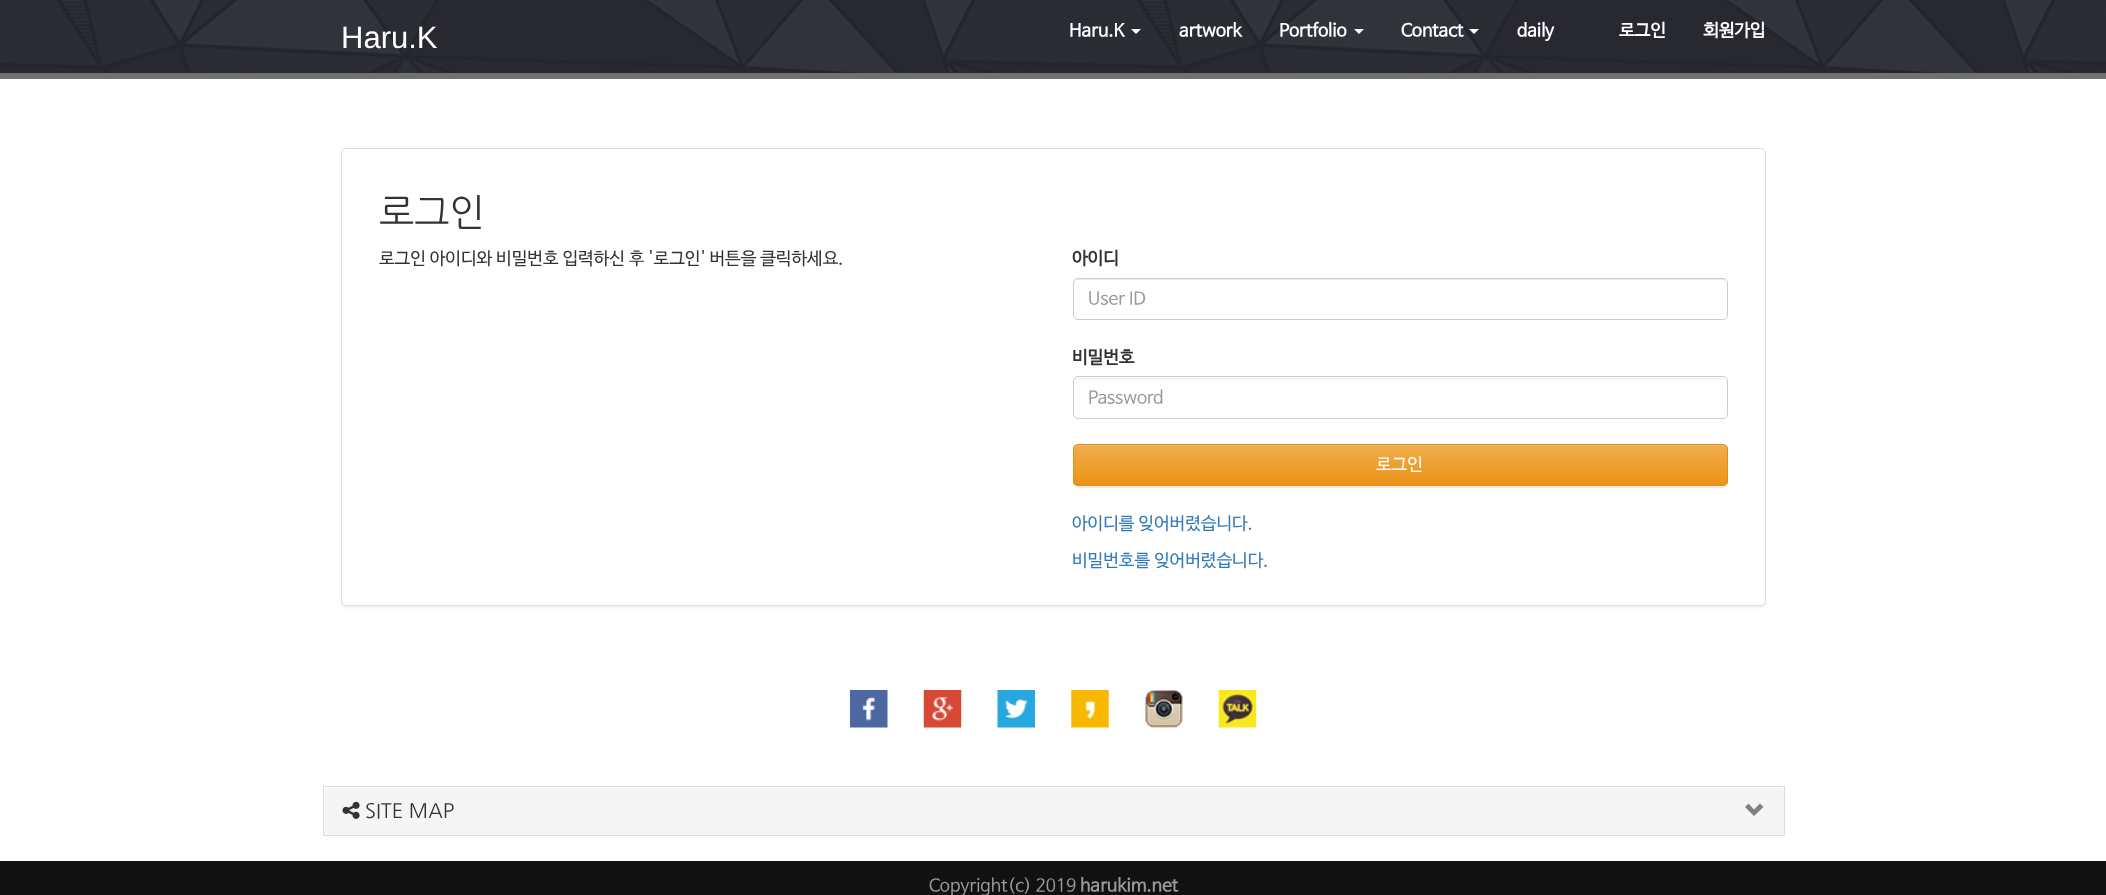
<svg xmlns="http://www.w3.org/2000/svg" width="2106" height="895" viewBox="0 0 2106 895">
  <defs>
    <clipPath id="clip1"><rect x="1073" y="444" width="655" height="42" rx="5"/></clipPath>
    <linearGradient id="g1" gradientUnits="userSpaceOnUse" x1="1400" y1="445" x2="1400" y2="485"><stop offset="0" stop-color="rgb(240,173,78)"/><stop offset="1" stop-color="rgb(235,147,22)"/></linearGradient>
  </defs>
  <rect width="100%" height="100%" fill="rgb(255,255,255)"/>
  <image x="0" y="0" width="2106" height="73" href="pic1.png"/>
  <rect x="0" y="73" width="2106" height="6" fill="rgb(113,113,113)"/>
  <text x="341" y="48" font-family="Liberation Sans" font-size="31" fill="rgb(255,255,255)">Haru.K</text>
  <text x="1069" y="36" font-family="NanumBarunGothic" font-size="17.5" font-weight="bold" fill="rgb(255,255,255)">Haru.K</text>
  <path d="M1131 29H1141L1136 34Z" fill="rgb(255,255,255)"/>
  <g font-family="NanumBarunGothic" font-size="17.5" font-weight="bold" fill="rgb(255,255,255)">
    <text x="1179" y="36">artwork</text>
    <text x="1279" y="36">Portfolio</text>
  </g>
  <path d="M1354 29H1364L1359 34Z" fill="rgb(255,255,255)"/>
  <text x="1401" y="36" font-family="NanumBarunGothic" font-size="17.5" font-weight="bold" fill="rgb(255,255,255)">Contact</text>
  <path d="M1469 29H1479L1474 34Z" fill="rgb(255,255,255)"/>
  <g font-family="NanumBarunGothic" font-size="17.5" font-weight="bold" fill="rgb(255,255,255)">
    <text x="1517" y="36">daily</text>
    <text x="1619" y="36">로그인</text>
    <text x="1703" y="36">회원가입</text>
  </g>
  <rect x="341" y="149" width="1425" height="459" rx="5" fill="rgba(0,0,0,0.05)" filter="blur(1px)"/>
  <rect x="341.5" y="148.5" width="1424" height="457" rx="4.5" fill="rgb(255,255,255)" stroke="rgb(221,221,221)"/>
  <text x="379" y="226" font-family="NanumGothic" font-size="37.5" fill="rgb(51,51,51)">로그인</text>
  <text x="379" y="264" font-family="NanumBarunGothic" font-size="17.5" fill="rgb(51,51,51)">로그인 아이디와 비밀번호 입력하신 후 '로그인' 버튼을 클릭하세요.</text>
  <text x="1072" y="264" font-family="NanumBarunGothic" font-size="17.5" font-weight="bold" fill="rgb(51,51,51)">아이디</text>
  <path d="M1078 280H1722C1725 280 1726 282 1726 284C1726 281 1725 279 1722 279H1078L1075 280L1074 281V284C1074 282 1075 280 1078 280Z" fill="rgb(236,236,236)"/>
  <rect x="1073.5" y="278.5" width="654" height="41" rx="4.5" fill="none" stroke="rgb(204,204,204)"/>
  <text x="1088" y="304" font-family="NanumBarunGothic" font-size="17.5" fill="rgb(153,153,153)">User ID</text>
  <text x="1072" y="363" font-family="NanumBarunGothic" font-size="17.5" font-weight="bold" fill="rgb(51,51,51)">비밀번호</text>
  <path d="M1078 379H1722C1724 379 1725 379 1726 380C1725 379 1724 378 1722 378H1078C1076 378 1075 379 1074 380C1075 379 1076 379 1078 379Z" fill="rgb(236,236,236)"/>
  <rect x="1073.5" y="376.5" width="654" height="42" rx="4.5" fill="none" stroke="rgb(204,204,204)"/>
  <text x="1088" y="403" font-family="NanumBarunGothic" font-size="17.5" fill="rgb(153,153,153)">Password</text>
  <rect x="1073" y="445" width="655" height="43" rx="5" fill="rgba(0,0,0,0.07)" filter="blur(0.5px)"/>
  <g clip-path="url(#clip1)">
    <rect x="1073" y="445" width="655" height="40" fill="url(#g1)"/>
  </g>
  <path d="M1078 446H1722C1725 446 1726 448 1726 450C1726 447 1725 445 1722 445H1078L1075 446L1074 447V450C1074 448 1075 446 1078 446Z" fill="rgb(242,185,104)"/>
  <rect x="1073.5" y="444.5" width="654" height="41" rx="4.5" fill="none" stroke="rgb(227,141,19)"/>
  <text x="1376" y="470" font-family="NanumBarunGothic" font-size="17.5" fill="rgb(255,255,255)">로그인</text>
  <g font-family="NanumBarunGothic" font-size="17.5" fill="rgb(51,122,183)">
    <text x="1072" y="529">아이디를 잊어버렸습니다.</text>
    <text x="1072" y="566">비밀번호를 잊어버렸습니다.</text>
  </g>
  <image x="850" y="690" width="38" height="38" href="pic2.png"/>
  <image x="923" y="690" width="39" height="38" href="pic3.png"/>
  <image x="997" y="690" width="38" height="38" href="pic4.png"/>
  <image x="1071" y="690" width="38" height="38" href="pic5.png"/>
  <image x="1145" y="690" width="38" height="38" href="pic6.png"/>
  <image x="1218" y="690" width="39" height="38" href="pic7.png"/>
  <rect x="323.5" y="786.5" width="1461" height="49" fill="none" stroke="rgb(221,221,221)"/>
  <path d="M328 788H1780C1782 788 1784 790 1784 792V835H324V792C324 790 326 788 328 788Z" fill="rgb(245,245,245)"/>
  <image x="342" y="801" width="18" height="18" href="pic8.png"/>
  <text x="365" y="818" font-family="NanumGothic" font-size="20" fill="rgb(51,51,51)">SITE MAP</text>
  <path d="M1763.5 807L1754 816L1745 807L1748.5 803.5L1754 809.5L1760 803.5Z" fill="rgb(128,128,128)"/>
  <rect x="0" y="861" width="2106" height="34" fill="rgb(17,17,17)"/>
  <text x="929" y="891" font-family="NanumBarunGothic" font-size="17.5" fill="rgb(153,153,153)">Copyright(c) 2019</text>
  <text x="1080" y="891" font-family="NanumBarunGothic" font-size="17.5" font-weight="bold" fill="rgb(153,153,153)">harukim.net</text>
</svg>
